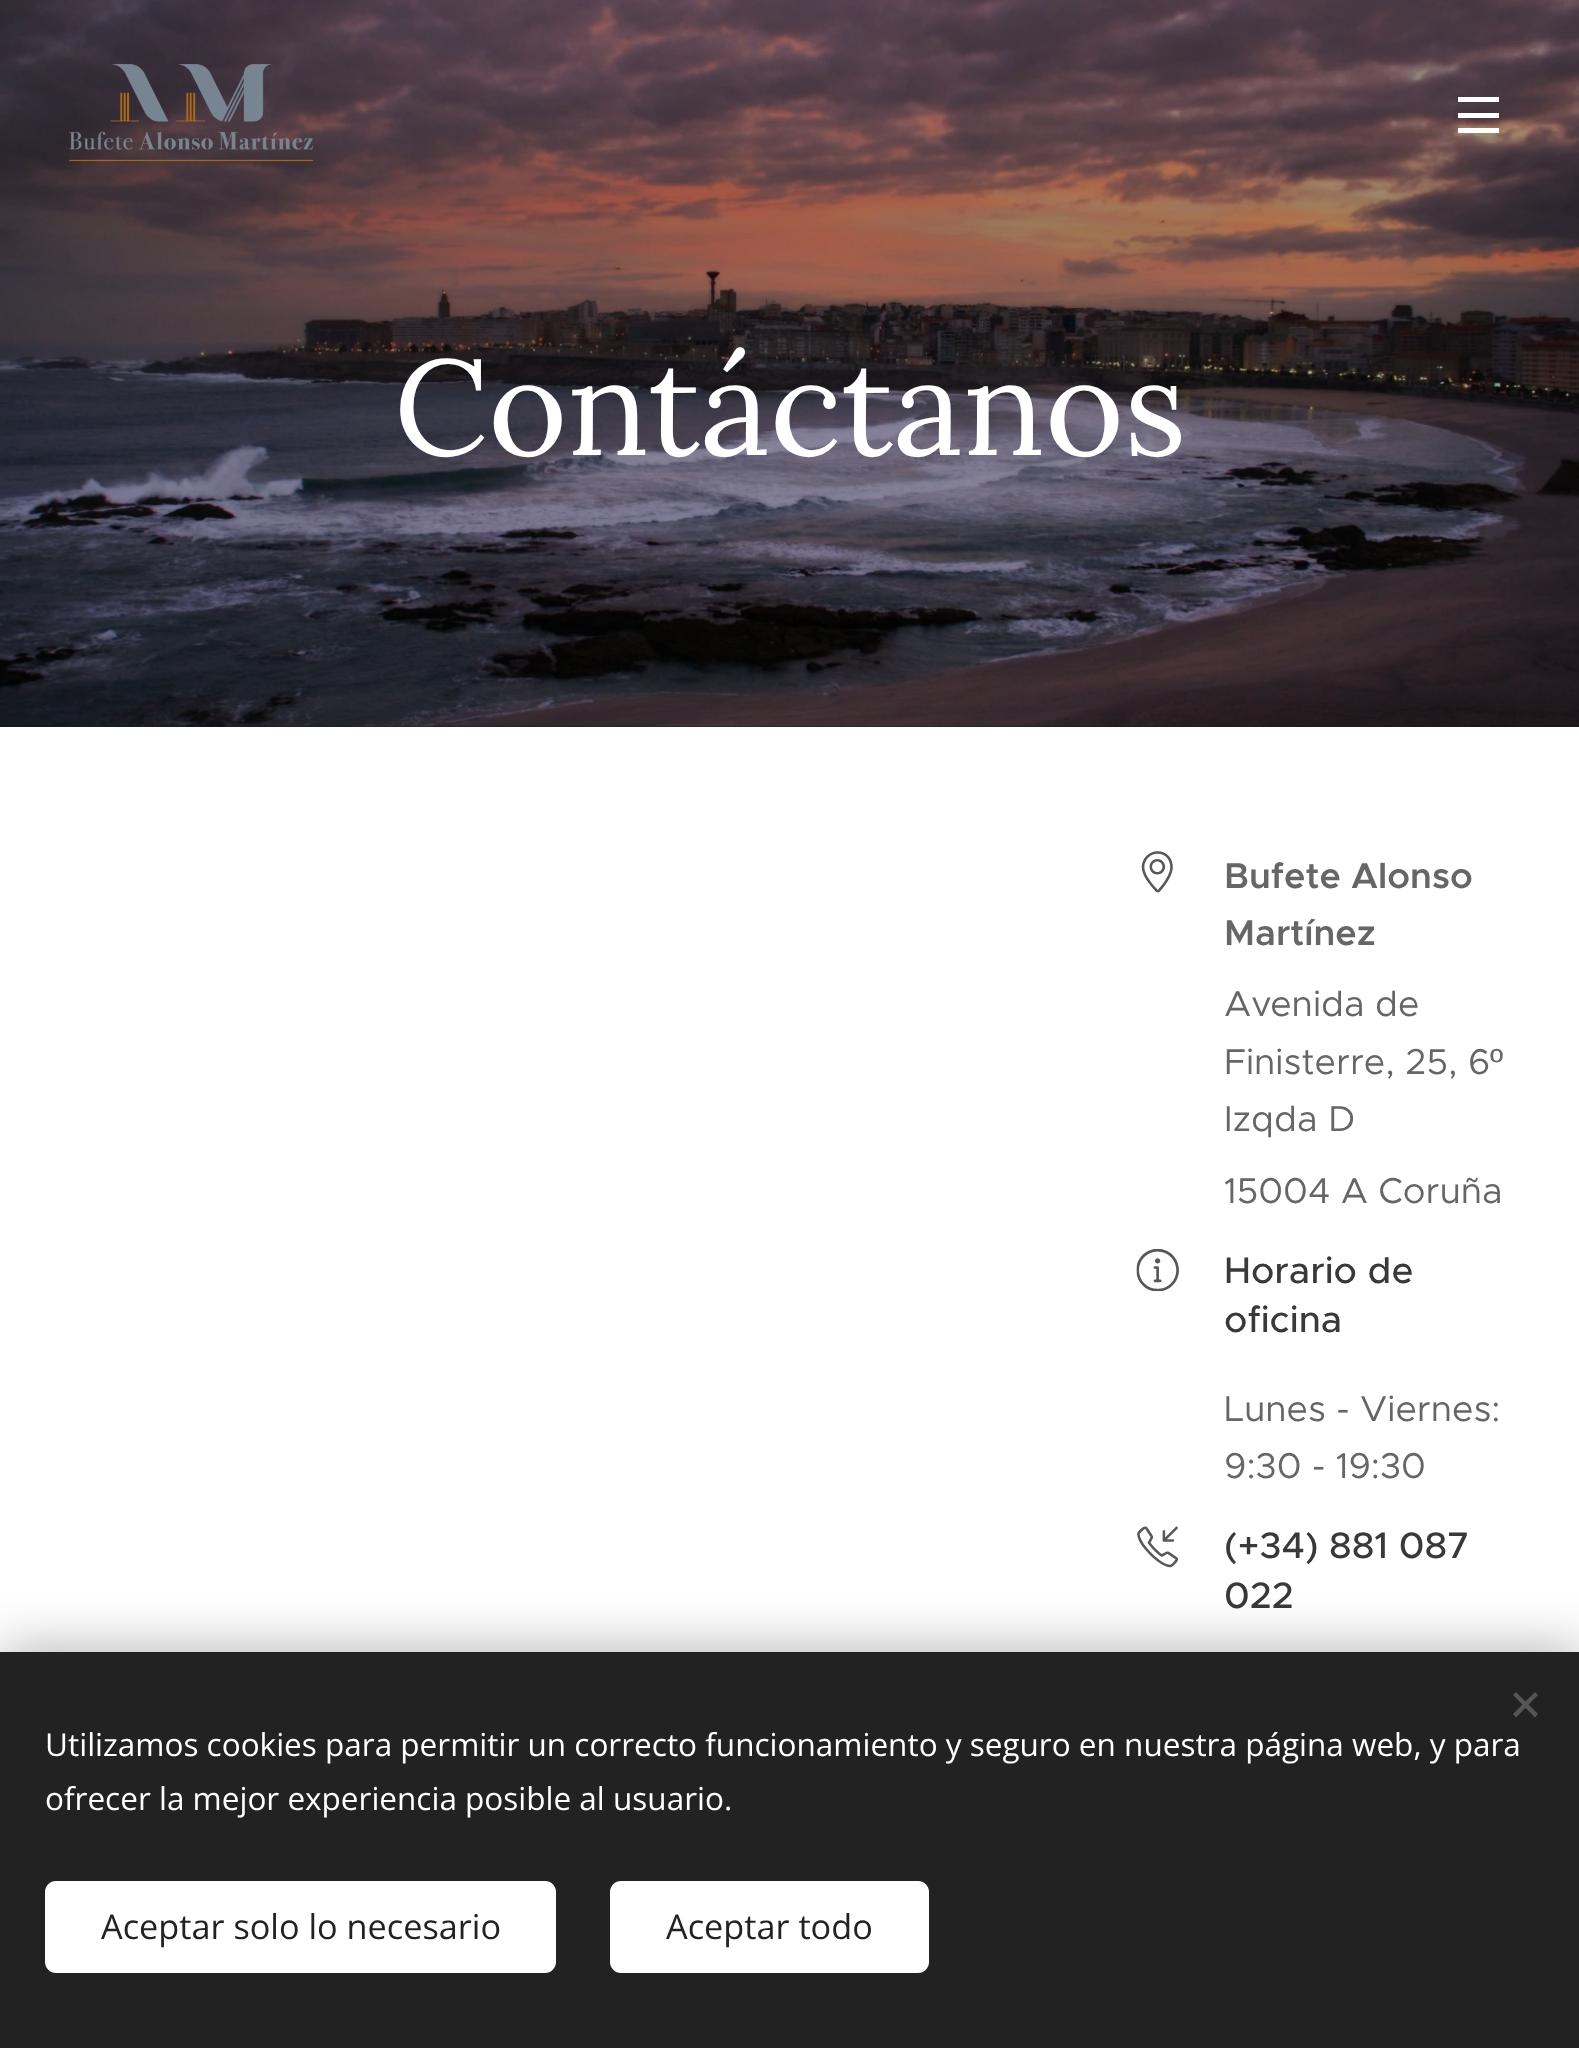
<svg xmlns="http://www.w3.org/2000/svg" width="1579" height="2048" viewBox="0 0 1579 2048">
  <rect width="100%" height="100%" fill="rgb(255,255,255)"/>
  <rect x="0" y="726" width="1579" height="1" fill="rgb(27,27,27)"/>
  <image x="0" y="0" width="1579" height="727" href="pic2.png"/>
  <image x="69" y="64" width="245" height="98" href="pic1.png"/>
  <rect x="1458" y="113" width="41" height="5" fill="rgb(255,255,255)"/>
  <rect x="1458" y="97" width="41" height="5" fill="rgb(255,255,255)"/>
  <rect x="1458" y="128" width="41" height="5" fill="rgb(255,255,255)"/>
  <text x="394" y="455" font-family="Lora" font-size="135" fill="rgb(255,255,255)">Contáctanos</text>
  <image x="1141" y="851" width="32" height="42" href="pic3.png"/>
  <g font-family="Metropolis" font-size="36" font-weight="600" fill="rgb(102,102,102)">
    <text>
      <tspan x="1224" y="888">Bufete Alonso</tspan>
      <tspan x="1224" y="945">Martínez</tspan>
    </text>
  </g>
  <g font-family="Metropolis" font-size="36" fill="rgb(102,102,102)">
    <text>
      <tspan x="1224" y="1016">Avenida de</tspan>
      <tspan x="1224" y="1074">Finisterre, 25, 6</tspan>
    </text>
  </g>
  <text x="1490" y="1074" font-family="Liberation Sans" font-size="36" fill="rgb(102,102,102)">º</text>
  <g font-family="Metropolis" font-size="36" fill="rgb(102,102,102)">
    <text x="1224" y="1131">Izqda D</text>
    <text x="1224" y="1203">15004 A Coruña</text>
  </g>
  <image x="1136" y="1249" width="43" height="43" href="pic4.png"/>
  <g font-family="Metropolis" font-size="37" font-weight="500" fill="rgb(57,57,57)">
    <text>
      <tspan x="1224" y="1283">Horario de</tspan>
      <tspan x="1224" y="1332">oficina</tspan>
    </text>
  </g>
  <g font-family="Metropolis" font-size="36" fill="rgb(102,102,102)">
    <text>
      <tspan x="1224" y="1421">Lunes - Viernes:</tspan>
      <tspan x="1224" y="1478">9:30 - 19:30</tspan>
    </text>
  </g>
  <image x="1137" y="1526" width="41" height="42" href="pic5.png"/>
  <g font-family="Metropolis" font-size="37" font-weight="500" fill="rgb(57,57,57)">
    <text>
      <tspan x="1224" y="1558">(+34) 881 087</tspan>
      <tspan x="1224" y="1608">022</tspan>
    </text>
  </g>
  <rect x="0" y="1652" width="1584" height="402" fill="rgba(0,0,0,0.33)" filter="blur(28px)"/>
  <rect x="0" y="1652" width="1579" height="396" fill="rgb(34,34,34)"/>
  <path d="M1513 1714L1535 1692L1538 1695L1516 1717.5Z" fill="rgb(85,85,85)"/>
  <path d="M1516 1692L1538 1714L1535 1717.5L1513 1695Z" fill="rgb(85,85,85)"/>
  <g font-family="Open Sans" font-size="31.5" fill="rgb(255,255,255)">
    <text>
      <tspan x="45" y="1756">Utilizamos cookies para permitir un correcto funcionamiento y seguro en nuestra página web, y para</tspan>
      <tspan x="45" y="1810">ofrecer la mejor experiencia posible al usuario.</tspan>
    </text>
  </g>
  <rect x="45" y="1881" width="511" height="92" rx="11" fill="rgb(255,255,255)"/>
  <text x="101" y="1939" font-family="Open Sans" font-size="34.25" fill="rgb(34,34,34)">Aceptar solo lo necesario</text>
  <rect x="610" y="1881" width="319" height="92" rx="11" fill="rgb(255,255,255)"/>
  <text x="666" y="1939" font-family="Open Sans" font-size="34.25" fill="rgb(34,34,34)">Aceptar todo</text>
</svg>
